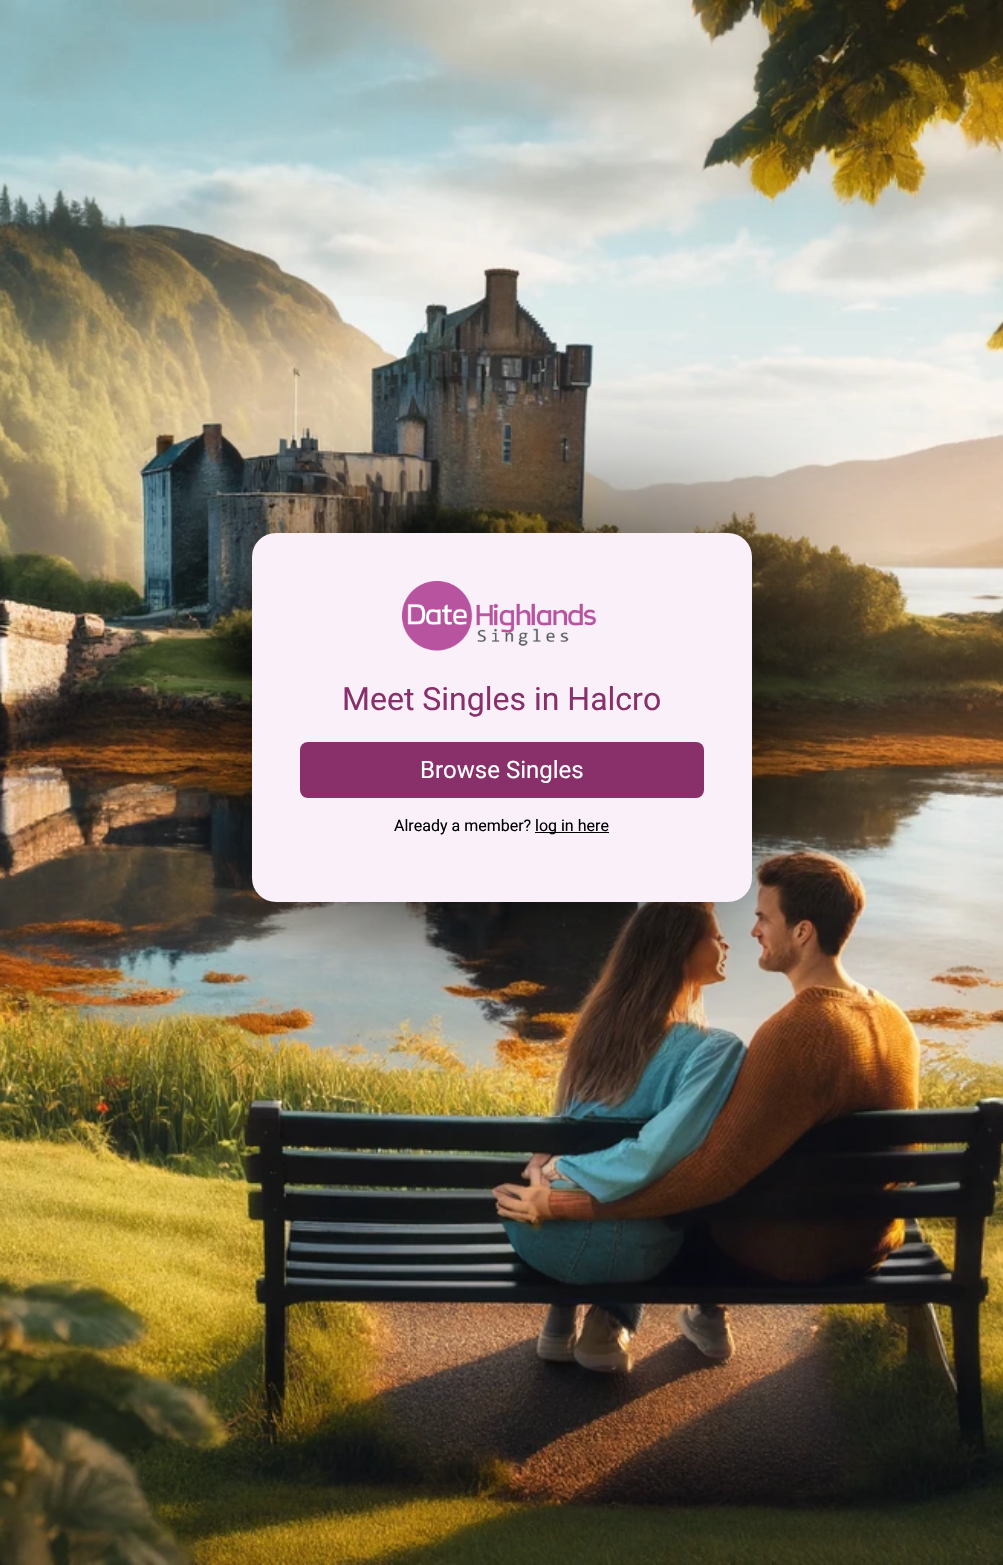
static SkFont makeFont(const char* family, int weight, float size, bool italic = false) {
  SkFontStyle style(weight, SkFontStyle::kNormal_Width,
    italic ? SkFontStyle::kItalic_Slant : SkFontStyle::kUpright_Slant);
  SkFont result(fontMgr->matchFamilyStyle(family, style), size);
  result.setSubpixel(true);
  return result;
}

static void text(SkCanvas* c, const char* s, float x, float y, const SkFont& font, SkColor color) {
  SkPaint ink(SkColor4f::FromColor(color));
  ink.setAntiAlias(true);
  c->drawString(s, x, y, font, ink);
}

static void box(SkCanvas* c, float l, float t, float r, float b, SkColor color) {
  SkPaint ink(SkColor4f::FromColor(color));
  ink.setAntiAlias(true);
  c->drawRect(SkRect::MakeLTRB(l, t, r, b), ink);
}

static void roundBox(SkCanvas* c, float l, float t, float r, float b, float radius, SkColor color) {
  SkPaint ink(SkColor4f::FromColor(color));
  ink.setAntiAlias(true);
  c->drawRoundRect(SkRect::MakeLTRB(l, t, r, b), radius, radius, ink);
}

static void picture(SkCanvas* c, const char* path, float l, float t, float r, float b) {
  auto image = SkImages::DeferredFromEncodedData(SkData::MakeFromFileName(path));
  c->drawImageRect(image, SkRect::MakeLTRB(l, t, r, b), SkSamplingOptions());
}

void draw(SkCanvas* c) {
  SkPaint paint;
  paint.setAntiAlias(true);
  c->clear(0xffffffff);
  picture(c, "img_01.png", 0, 0, 1003, 1565);
  paint.setColor(0xff000000);
  paint.setMaskFilter(SkMaskFilter::MakeBlur(kNormal_SkBlurStyle, 80));
  c->drawRoundRect(SkRect::MakeLTRB(252, 533, 752, 902), 24, 24, paint);
  paint.setMaskFilter(nullptr);
  roundBox(c, 252, 533, 752, 902, 24, 0xfff9f0fa);
  picture(c, "img_02.png", 402, 581, 597, 652);
  SkFont face1 = makeFont("Roboto", 400, 32);
  text(c, "Meet Singles in Halcro", 342, 710, face1, 0xff892f69);
  roundBox(c, 300, 742, 704, 798, 8, 0xff892f69);
  SkFont face2 = makeFont("Roboto", 400, 24);
  text(c, "Browse Singles", 420, 778, face2, 0xffffffff);
  SkFont face3 = makeFont("Roboto", 400, 16);
  text(c, "Already a member?", 394, 831, face3, 0xff000000);
  box(c, 535, 832, 609, 833, 0xff000000);
  text(c, "log in here", 535, 831, face3, 0xff000000);
}
